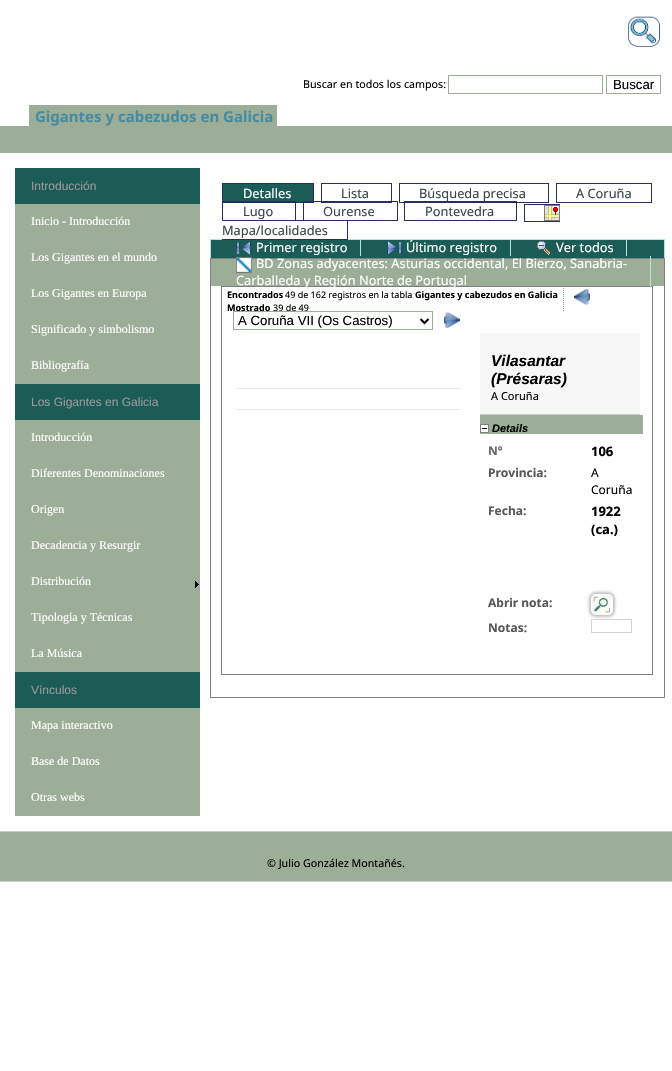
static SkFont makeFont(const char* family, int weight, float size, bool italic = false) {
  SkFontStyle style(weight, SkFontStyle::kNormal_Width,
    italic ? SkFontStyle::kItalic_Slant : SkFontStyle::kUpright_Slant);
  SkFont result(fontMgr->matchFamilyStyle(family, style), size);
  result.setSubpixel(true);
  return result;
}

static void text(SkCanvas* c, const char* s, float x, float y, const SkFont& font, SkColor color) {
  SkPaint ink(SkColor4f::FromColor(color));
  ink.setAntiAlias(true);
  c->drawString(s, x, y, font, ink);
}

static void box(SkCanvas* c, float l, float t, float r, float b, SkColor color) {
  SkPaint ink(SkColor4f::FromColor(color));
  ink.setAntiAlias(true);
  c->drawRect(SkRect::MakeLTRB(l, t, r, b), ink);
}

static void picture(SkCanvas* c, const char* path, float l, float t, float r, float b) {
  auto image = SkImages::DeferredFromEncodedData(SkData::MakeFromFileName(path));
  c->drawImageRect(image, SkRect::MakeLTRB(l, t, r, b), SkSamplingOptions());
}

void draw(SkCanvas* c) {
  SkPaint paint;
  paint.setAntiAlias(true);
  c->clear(0xffffffff);
  picture(c, "img_01.png", 628, 16, 661, 47);
  SkFont face1 = makeFont("Noto Sans", 400, 10.7f);
  text(c, "Buscar en todos los campos:", 303, 88, face1, 0xff000000);
  paint.setStyle(SkPaint::kStroke_Style);
  paint.setStrokeWidth(1);
  paint.setColor(0xff9cae97);
  c->drawRect(SkRect::MakeLTRB(448.5f, 75.5f, 602.5f, 93.5f), paint);
  c->drawRect(SkRect::MakeLTRB(606.5f, 75.5f, 660.5f, 93.5f), paint);
  SkFont face2 = makeFont("Liberation Sans", 400, 13.25f);
  text(c, "Buscar", 613, 89, face2, 0xff000000);
  box(c, 35, 105, 101, 126, 0xff9cae97);
  box(c, 0, 126, 672, 153, 0xff9cae97);
  box(c, 101, 105, 105, 127, 0xff9cae97);
  box(c, 105, 105, 114, 126, 0xff9cae97);
  box(c, 114, 105, 117, 127, 0xff9cae97);
  box(c, 117, 105, 196, 126, 0xff9cae97);
  box(c, 196, 105, 200, 127, 0xff9cae97);
  box(c, 200, 105, 219, 126, 0xff9cae97);
  box(c, 219, 105, 223, 127, 0xff9cae97);
  box(c, 223, 105, 273, 126, 0xff9cae97);
  SkFont face3 = makeFont("Noto Sans", 700, 15);
  text(c, "Gigantes y cabezudos en Galicia", 35, 122, face3, 0xff478ba1);
  box(c, 29, 105, 35, 127, 0xff9cae97);
  box(c, 273, 105, 277, 127, 0xff9cae97);
  box(c, 15, 168, 200, 204, 0xff1b5c57);
  SkFont face4 = makeFont("Liberation Sans", 400, 12);
  text(c, "Introducción", 31, 190, face4, 0xff999999);
  box(c, 15, 204, 200, 384, 0xff9cae97);
  SkFont face5 = makeFont("Liberation Serif", 400, 12);
  text(c, "Inicio - Introducción", 31, 225, face5, 0xffffffff);
  text(c, "Los Gigantes en el mundo", 31, 261, face5, 0xffffffff);
  text(c, "Los Gigantes en Europa", 31, 297, face5, 0xffffffff);
  text(c, "Significado y simbolismo", 31, 333, face5, 0xffffffff);
  text(c, "Bibliografía", 31, 369, face5, 0xffffffff);
  box(c, 15, 384, 200, 420, 0xff1b5c57);
  text(c, "Los Gigantes en Galicia", 31, 406, face4, 0xff999999);
  box(c, 15, 420, 200, 672, 0xff9cae97);
  text(c, "Introducción", 31, 441, face5, 0xffffffff);
  text(c, "Diferentes Denominaciones", 31, 477, face5, 0xffffffff);
  text(c, "Origen", 31, 513, face5, 0xffffffff);
  text(c, "Decadencia y Resurgir", 31, 549, face5, 0xffffffff);
  text(c, "Distribución", 31, 585, face5, 0xffffffff);
  picture(c, "img_02.png", 195, 581, 199, 588);
  text(c, "Tipología y Técnicas", 31, 621, face5, 0xffffffff);
  text(c, "La Música", 31, 657, face5, 0xffffffff);
  box(c, 15, 672, 200, 708, 0xff1b5c57);
  text(c, "Vínculos", 31, 694, face4, 0xff999999);
  box(c, 15, 708, 200, 816, 0xff9cae97);
  text(c, "Mapa interactivo", 31, 729, face5, 0xffffffff);
  text(c, "Base de Datos", 31, 765, face5, 0xffffffff);
  text(c, "Otras webs", 31, 801, face5, 0xffffffff);
  box(c, 210, 239, 665, 240, 0xffb6e5e1);
  box(c, 223, 184, 291, 201, 0xff1b5c57);
  SkFont face6 = makeFont("Noto Sans", 400, 12.8f);
  text(c, "Detalles", 243, 198, face6, 0xffffffff);
  box(c, 222, 183, 314, 184, 0xff2a2c64);
  box(c, 222, 202, 291, 203, 0xff153069);
  box(c, 222, 183, 223, 203, 0xff2a2c64);
  box(c, 291, 184, 313, 202, 0xff1b5c57);
  box(c, 313, 183, 314, 203, 0xff2a2c64);
  box(c, 291, 202, 314, 203, 0xff153069);
  text(c, "Lista", 341, 198, face6, 0xff384647);
  box(c, 321, 183, 392, 184, 0xff2a2c64);
  box(c, 321, 202, 369, 203, 0xff2a2c64);
  box(c, 321, 183, 322, 203, 0xff2a2c64);
  box(c, 391, 183, 392, 203, 0xff2a2c64);
  box(c, 369, 202, 392, 203, 0xff2a2c64);
  text(c, "Búsqueda precisa", 419, 198, face6, 0xff384647);
  box(c, 399, 183, 549, 184, 0xff2a2c64);
  box(c, 399, 202, 526, 203, 0xff2a2c64);
  box(c, 399, 183, 400, 203, 0xff2a2c64);
  box(c, 548, 183, 549, 203, 0xff2a2c64);
  box(c, 526, 202, 549, 203, 0xff2a2c64);
  text(c, "A Coruña", 576, 198, face6, 0xff384647);
  box(c, 556, 183, 652, 184, 0xff2a2c64);
  box(c, 556, 202, 632, 203, 0xff2a2c64);
  box(c, 556, 183, 557, 203, 0xff2a2c64);
  box(c, 651, 183, 652, 203, 0xff2a2c64);
  box(c, 632, 202, 652, 203, 0xff2a2c64);
  text(c, "Lugo", 243, 216, face6, 0xff384647);
  box(c, 222, 201, 296, 202, 0xff2a2c64);
  box(c, 222, 220, 261, 221, 0xff2a2c64);
  box(c, 222, 201, 223, 221, 0xff2a2c64);
  box(c, 295, 201, 296, 221, 0xff2a2c64);
  text(c, "Ourense", 323, 216, face6, 0xff384647);
  box(c, 303, 201, 398, 202, 0xff2a2c64);
  box(c, 303, 201, 304, 221, 0xff2a2c64);
  box(c, 261, 220, 375, 221, 0xff2a2c64);
  box(c, 397, 201, 398, 221, 0xff2a2c64);
  box(c, 375, 220, 398, 221, 0xff2a2c64);
  text(c, "Pontevedra", 425, 216, face6, 0xff384647);
  box(c, 404, 201, 517, 202, 0xff2a2c64);
  box(c, 404, 220, 494, 221, 0xff2a2c64);
  box(c, 404, 201, 405, 221, 0xff2a2c64);
  box(c, 516, 201, 517, 221, 0xff2a2c64);
  box(c, 494, 220, 517, 221, 0xff2a2c64);
  picture(c, "img_03.png", 544, 205, 560, 221);
  text(c, "Mapa/localidades", 222, 235, face6, 0xff384647);
  box(c, 524, 204, 560, 205, 0xff2a2c64);
  box(c, 524, 221, 560, 222, 0xff2a2c64);
  box(c, 524, 204, 525, 222, 0xff2a2c64);
  box(c, 222, 239, 328, 240, 0xff2a2c64);
  box(c, 347, 220, 348, 240, 0xff2a2c64);
  box(c, 328, 239, 348, 240, 0xff2a2c64);
  box(c, 211, 240, 664, 258, 0xff1b5c57);
  box(c, 664, 240, 665, 258, 0xffb6e5e1);
  box(c, 210, 240, 211, 258, 0xffb6e5e1);
  box(c, 360, 240, 361, 256, 0xffb6e5e1);
  picture(c, "img_04.png", 236, 241, 251, 255);
  text(c, "Primer registro", 256, 252, face6, 0xffffffff);
  box(c, 510, 240, 511, 256, 0xffb6e5e1);
  picture(c, "img_05.png", 387, 241, 402, 255);
  text(c, "Último registro", 406, 252, face6, 0xffffffff);
  box(c, 626, 240, 627, 256, 0xffb6e5e1);
  picture(c, "img_06.png", 537, 241, 550, 255);
  text(c, "Ver todos", 556, 252, face6, 0xffffffff);
  paint.setColor(0xff808080);
  c->drawRect(SkRect::MakeLTRB(210.5f, 258.5f, 664.5f, 697.5f), paint);
  box(c, 211, 259, 664, 286, 0xff9cae97);
  c->drawRect(SkRect::MakeLTRB(221.5f, 286.5f, 652.5f, 674.5f), paint);
  box(c, 650, 256, 651, 288, 0xffb6e5e1);
  picture(c, "img_07.png", 236, 257, 252, 273);
  text(c, "BD Zonas adyacentes: Asturias occidental, El Bierzo, Sanabria-", 256, 268, face6, 0xffffffff);
  text(c, "Carballeda y Región Norte de Portugal", 236, 285, face6, 0xffffffff);
  paint.setColor(0xff9cae97);
  paint.setPathEffect(SkDashPathEffect::Make({{1, 1}}, 0));
  c->drawPath(SkPathBuilder().moveTo(563.5f, 288).lineTo(563.5f, 311).detach(), paint);
  paint.setPathEffect(nullptr);
  SkFont face7 = makeFont("Noto Sans", 700, 9);
  text(c, "Encontrados", 227, 298, face7, 0xff000000);
  SkFont face8 = makeFont("Noto Sans", 400, 9);
  text(c, "49 de 162 registros en la tabla", 285, 298, face8, 0xff000000);
  text(c, "Gigantes y cabezudos en Galicia", 415, 298, face7, 0xff000000);
  text(c, "Mostrado", 227, 311, face7, 0xff000000);
  text(c, "39 de 49", 273, 311, face8, 0xff000000);
  picture(c, "img_08.png", 574, 289, 590, 305);
  c->drawRect(SkRect::MakeLTRB(233.5f, 311.5f, 432.5f, 329.5f), paint);
  paint.setStrokeWidth(2);
  paint.setColor(0xff000000);
  c->drawPath(SkPathBuilder().moveTo(420.5f, 319).lineTo(424.5f, 323).lineTo(428.5f, 319).detach(), paint);
  text(c, "A Coruña VII (Os Castros)", 238, 325, face2, 0xff000000);
  picture(c, "img_09.png", 444, 312, 460, 328);
  box(c, 236, 388, 461, 389, 0xffe9e9e9);
  box(c, 236, 409, 461, 410, 0xffe9e9e9);
  box(c, 480, 333, 640, 414, 0xfff7f7f7);
  box(c, 480, 414, 640, 415, 0xffcccccc);
  SkFont face9 = makeFont("Liberation Sans", 700, 15.5f, true);
  text(c, "Vilasantar", 491, 366, face9, 0xff000000);
  text(c, "(Présaras)", 491, 384, face9, 0xff000000);
  SkFont face10 = makeFont("Noto Sans", 400, 11);
  text(c, "A Coruña", 491, 400, face10, 0xff000000);
  box(c, 480, 415, 643, 434, 0xff9cae97);
  picture(c, "img_10.png", 480, 424, 489, 433);
  SkFont face11 = makeFont("Liberation Sans", 700, 11, true);
  text(c, "Details", 492, 432, face11, 0xff000000);
  SkFont face12 = makeFont("Noto Sans", 700, 12);
  text(c, "Nº", 488, 455, face12, 0xff666666);
  SkFont face13 = makeFont("Noto Sans", 700, 13);
  text(c, "106", 591, 456, face13, 0xff000000);
  text(c, "Provincia:", 488, 477, face12, 0xff585858);
  SkFont face14 = makeFont("Noto Sans", 400, 12);
  text(c, "A", 591, 477, face14, 0xff000000);
  text(c, "Coruña", 591, 494, face14, 0xff000000);
  text(c, "Fecha:", 488, 515, face12, 0xff585858);
  text(c, "1922", 591, 516, face13, 0xff000000);
  text(c, "(ca.)", 591, 534, face13, 0xff000000);
  text(c, "Abrir nota:", 488, 607, face12, 0xff585858);
  paint.setStyle(SkPaint::kFill_Style);
  paint.setColor(0xffc0c0c0);
  paint.setMaskFilter(SkMaskFilter::MakeBlur(kNormal_SkBlurStyle, 1.5f));
  c->drawRoundRect(SkRect::MakeLTRB(589, 592, 615, 617), 7, 7, paint);
  paint.setMaskFilter(nullptr);
  paint.setStyle(SkPaint::kStroke_Style);
  paint.setColor(0xffffffff);
  c->drawRoundRect(SkRect::MakeLTRB(592, 595, 612, 614), 4, 4, paint);
  picture(c, "img_11.png", 593, 596, 611, 613);
  text(c, "Notas:", 488, 632, face12, 0xff585858);
  paint.setStrokeWidth(1);
  paint.setColor(0xffd3d3d3);
  c->drawRect(SkRect::MakeLTRB(591.5f, 619.5f, 631.5f, 632.5f), paint);
  box(c, 0, 832, 672, 881, 0xff9cae97);
  box(c, 0, 831, 672, 832, 0xffcccccc);
  box(c, 0, 881, 672, 882, 0xffcccccc);
  text(c, "© Julio González Montañés.", 267, 867, face1, 0xff000000);
}
